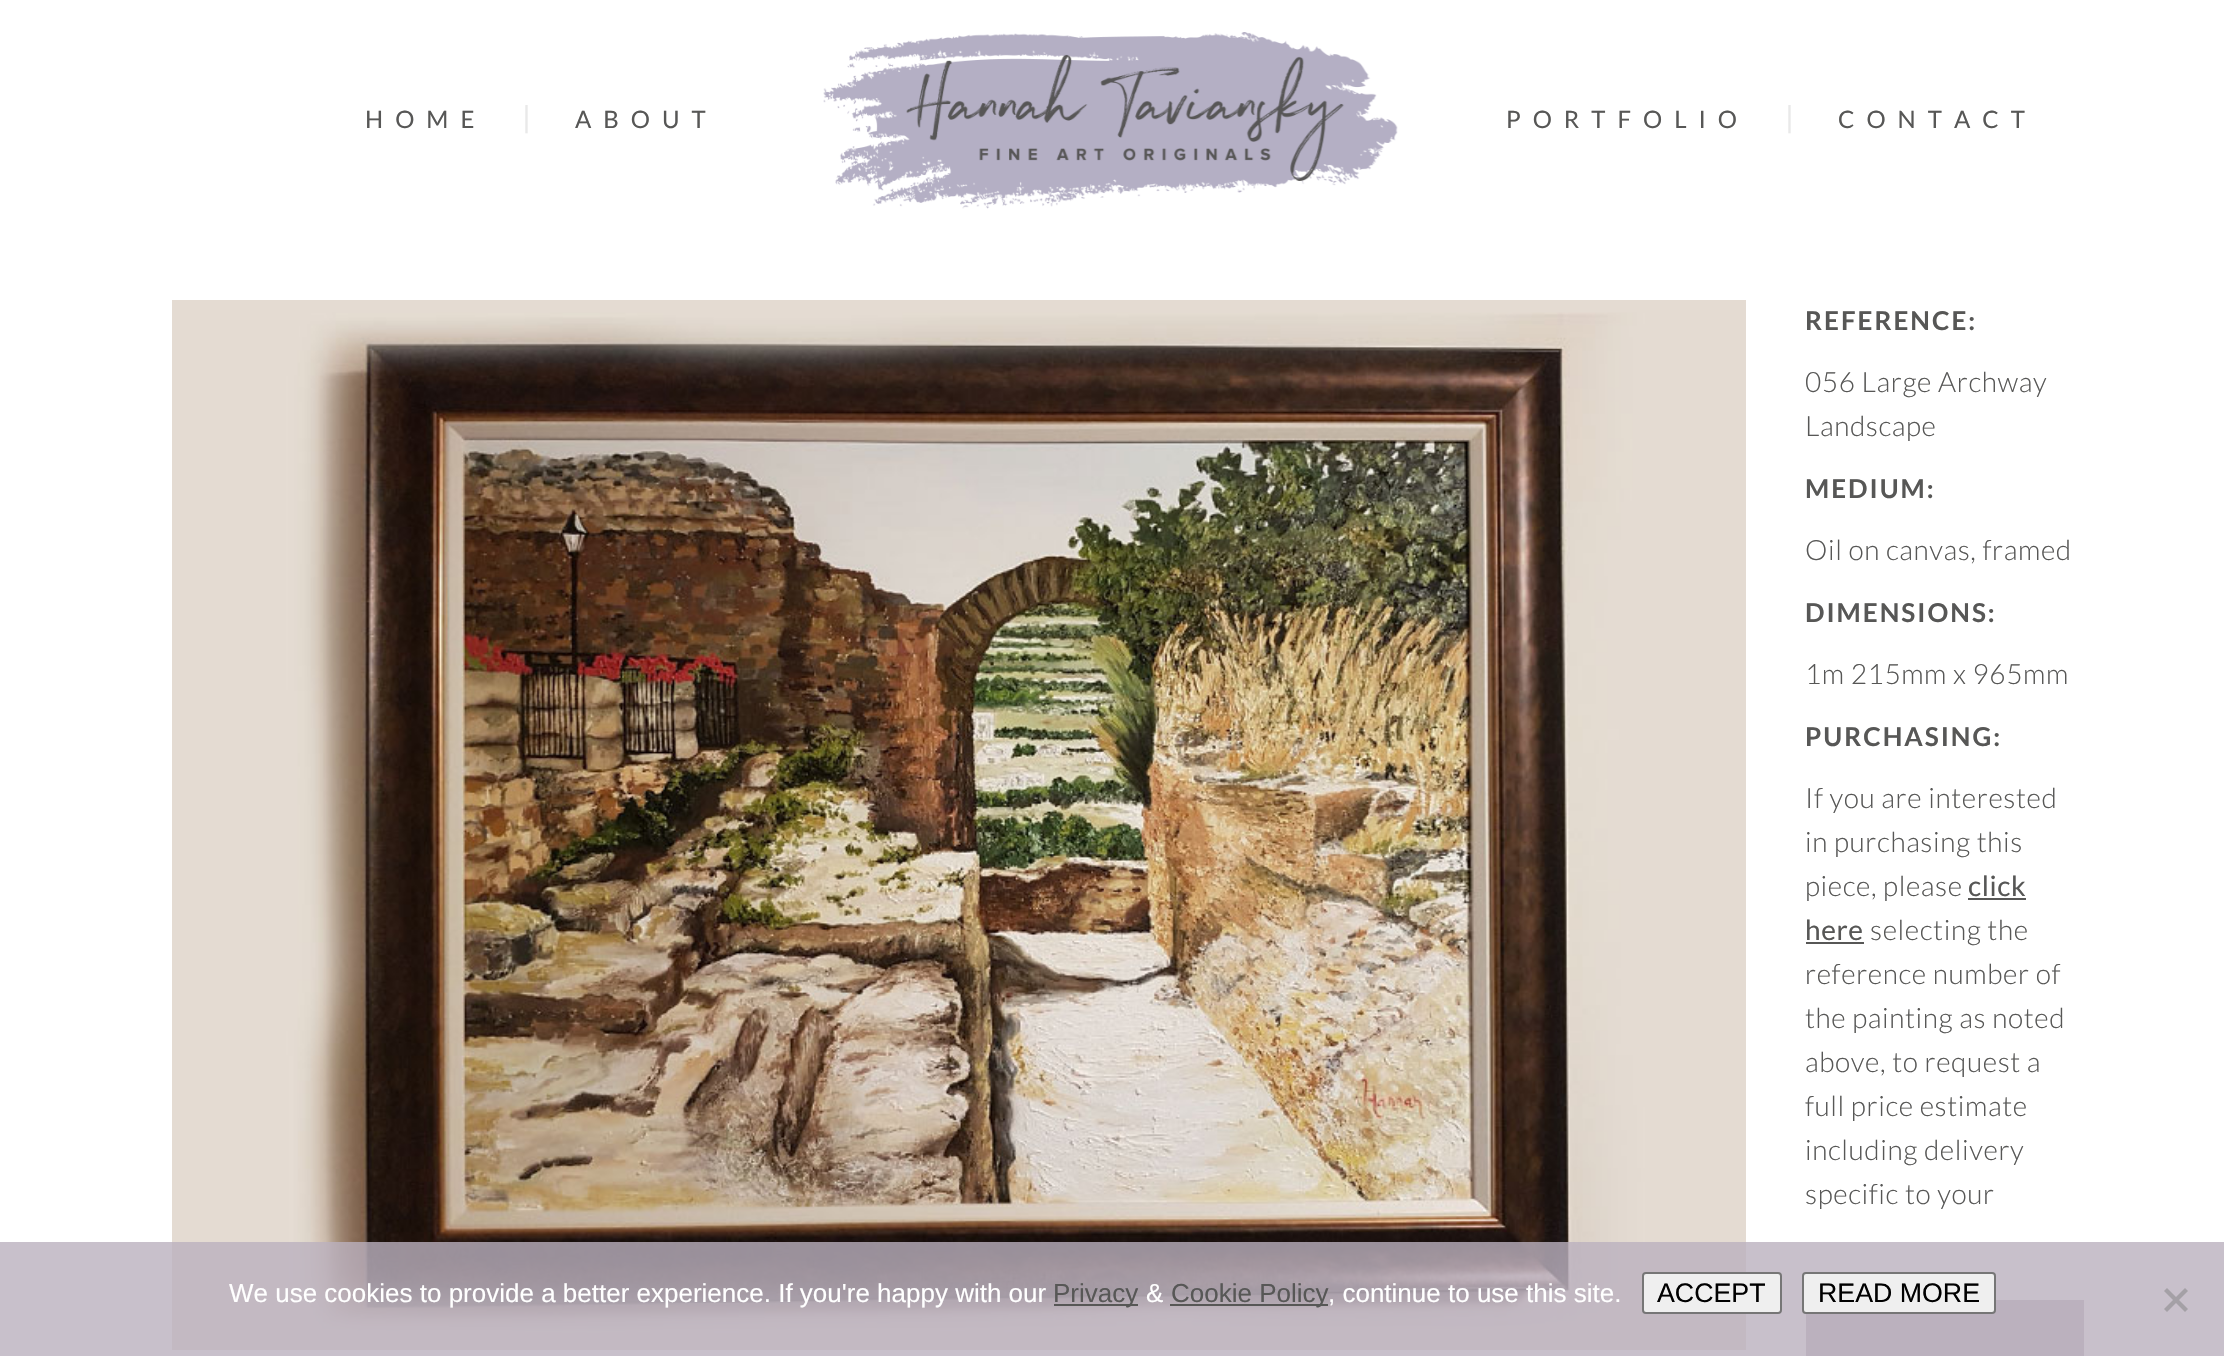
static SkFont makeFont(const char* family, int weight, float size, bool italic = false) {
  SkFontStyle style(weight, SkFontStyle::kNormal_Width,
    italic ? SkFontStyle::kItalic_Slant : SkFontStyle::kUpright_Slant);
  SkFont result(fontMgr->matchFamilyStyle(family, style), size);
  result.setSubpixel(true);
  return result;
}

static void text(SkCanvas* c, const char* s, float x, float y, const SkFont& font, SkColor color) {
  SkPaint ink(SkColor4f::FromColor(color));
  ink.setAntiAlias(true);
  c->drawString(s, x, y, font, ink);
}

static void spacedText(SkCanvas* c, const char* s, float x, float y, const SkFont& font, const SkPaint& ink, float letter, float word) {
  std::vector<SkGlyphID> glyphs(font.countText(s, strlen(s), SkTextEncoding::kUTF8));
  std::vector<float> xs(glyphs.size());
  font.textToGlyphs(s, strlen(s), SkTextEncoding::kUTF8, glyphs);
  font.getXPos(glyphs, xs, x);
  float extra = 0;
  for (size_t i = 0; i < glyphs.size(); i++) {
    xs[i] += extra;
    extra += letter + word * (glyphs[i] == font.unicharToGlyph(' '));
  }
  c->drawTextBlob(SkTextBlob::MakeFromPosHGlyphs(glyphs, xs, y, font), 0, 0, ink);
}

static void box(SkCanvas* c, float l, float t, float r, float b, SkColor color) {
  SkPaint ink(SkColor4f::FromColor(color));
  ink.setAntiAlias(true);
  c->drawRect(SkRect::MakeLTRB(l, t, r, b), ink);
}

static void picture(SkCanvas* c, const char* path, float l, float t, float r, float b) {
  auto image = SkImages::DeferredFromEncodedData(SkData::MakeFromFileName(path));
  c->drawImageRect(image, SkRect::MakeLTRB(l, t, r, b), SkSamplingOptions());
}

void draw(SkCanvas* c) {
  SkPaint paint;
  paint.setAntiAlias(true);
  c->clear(0xffffffff);
  SkFont face1 = makeFont("Lato", 400, 24);
  paint.setColor(0xff575756);
  spacedText(c, "HOME", 365, 128, face1, paint, 12, 0);
  SkFont face2 = makeFont("Lato", 400, 30);
  text(c, "|", 522, 128, face2, 0xffe9e9e9);
  spacedText(c, "ABOUT", 575, 128, face1, paint, 12, 0);
  picture(c, "img_01.png", 823, 32, 1398, 209);
  spacedText(c, "PORTFOLIO", 1506, 128, face1, paint, 12, 0);
  text(c, "|", 1785, 128, face2, 0xffe9e9e9);
  spacedText(c, "CONTACT", 1838, 128, face1, paint, 12, 0);
  picture(c, "img_02.png", 172, 300, 1746, 1350);
  SkFont face3 = makeFont("Lato", 700, 26);
  spacedText(c, "REFERENCE:", 1805, 330, face3, paint, 2, 0);
  SkFont face4 = makeFont("Lato", 300, 28);
  spacedText(c, "056 Large Archway", 1805, 392, face4, paint, 0.6f, 0);
  spacedText(c, "Landscape", 1805, 436, face4, paint, 0.6f, 0);
  spacedText(c, "MEDIUM:", 1805, 498, face3, paint, 2, 0);
  spacedText(c, "Oil on canvas, framed", 1805, 560, face4, paint, 0.6f, 0);
  spacedText(c, "DIMENSIONS:", 1805, 622, face3, paint, 2, 0);
  spacedText(c, "1m 215mm x 965mm", 1805, 684, face4, paint, 0.6f, 0);
  spacedText(c, "PURCHASING:", 1805, 746, face3, paint, 2, 0);
  spacedText(c, "If you are interested", 1805, 808, face4, paint, 0.6f, 0);
  spacedText(c, "in purchasing this", 1805, 852, face4, paint, 0.6f, 0);
  spacedText(c, "piece, please", 1805, 896, face4, paint, 0.6f, 0);
  SkFont face5 = makeFont("Lato", 400, 28);
  spacedText(c, "click", 1968, 896, face5, paint, 0.6f, 0);
  box(c, 1968, 898, 2026, 900, 0xff575756);
  spacedText(c, "here", 1805, 940, face5, paint, 0.6f, 0);
  box(c, 1806, 942, 1864, 944, 0xff575756);
  spacedText(c, "selecting the", 1870, 940, face4, paint, 0.6f, 0);
  spacedText(c, "reference number of", 1805, 984, face4, paint, 0.6f, 0);
  spacedText(c, "the painting as noted", 1805, 1028, face4, paint, 0.6f, 0);
  spacedText(c, "above, to request a", 1805, 1072, face4, paint, 0.6f, 0);
  spacedText(c, "full price estimate", 1805, 1116, face4, paint, 0.6f, 0);
  spacedText(c, "including delivery", 1805, 1160, face4, paint, 0.6f, 0);
  spacedText(c, "specific to your", 1805, 1204, face4, paint, 0.6f, 0);
  box(c, 1806, 1300, 2084, 1356, 0xffbab0be);
  box(c, 0, 1242, 2224, 1356, 0xccbab0be);
  SkFont face6 = makeFont("Liberation Sans", 400, 26);
  text(c, "We use cookies to provide a better experience. If you're happy with our", 229, 1302, face6, 0xffffffff);
  box(c, 1054, 1304, 1138, 1306, 0xff575756);
  text(c, "Privacy", 1053, 1302, face6, 0xff575756);
  text(c, "&", 1146, 1302, face6, 0xffffffff);
  box(c, 1170, 1304, 1328, 1306, 0xff575756);
  text(c, "Cookie Policy", 1171, 1302, face6, 0xff575756);
  text(c, ", continue to use this site.", 1328, 1302, face6, 0xffffffff);
  paint.setColor(0xffefefef);
  c->drawRoundRect(SkRect::MakeLTRB(1643, 1273, 1781, 1313), 3, 3, paint);
  paint.setStyle(SkPaint::kStroke_Style);
  paint.setStrokeWidth(2);
  paint.setColor(0xff767676);
  c->drawRoundRect(SkRect::MakeLTRB(1643, 1273, 1781, 1313), 3, 3, paint);
  SkFont face7 = makeFont("Liberation Sans", 400, 26.75f);
  text(c, "ACCEPT", 1657, 1302, face7, 0xff000000);
  paint.setStyle(SkPaint::kFill_Style);
  paint.setColor(0xffefefef);
  c->drawRoundRect(SkRect::MakeLTRB(1803, 1273, 1995, 1313), 3, 3, paint);
  paint.setStyle(SkPaint::kStroke_Style);
  paint.setColor(0xff767676);
  c->drawRoundRect(SkRect::MakeLTRB(1803, 1273, 1995, 1313), 3, 3, paint);
  text(c, "READ MORE", 1818, 1302, face7, 0xff000000);
  paint.setStyle(SkPaint::kFill_Style);
  paint.setColor(0xffa4a0a6);
  c->drawPath(SkPathBuilder().moveTo(2185, 1288).lineTo(2188, 1291).lineTo(2167, 1312).lineTo(2164, 1309).close().detach(), paint);
  c->drawPath(SkPathBuilder().moveTo(2164, 1291).lineTo(2167, 1288).lineTo(2188, 1309).lineTo(2185, 1312).close().detach(), paint);
}
